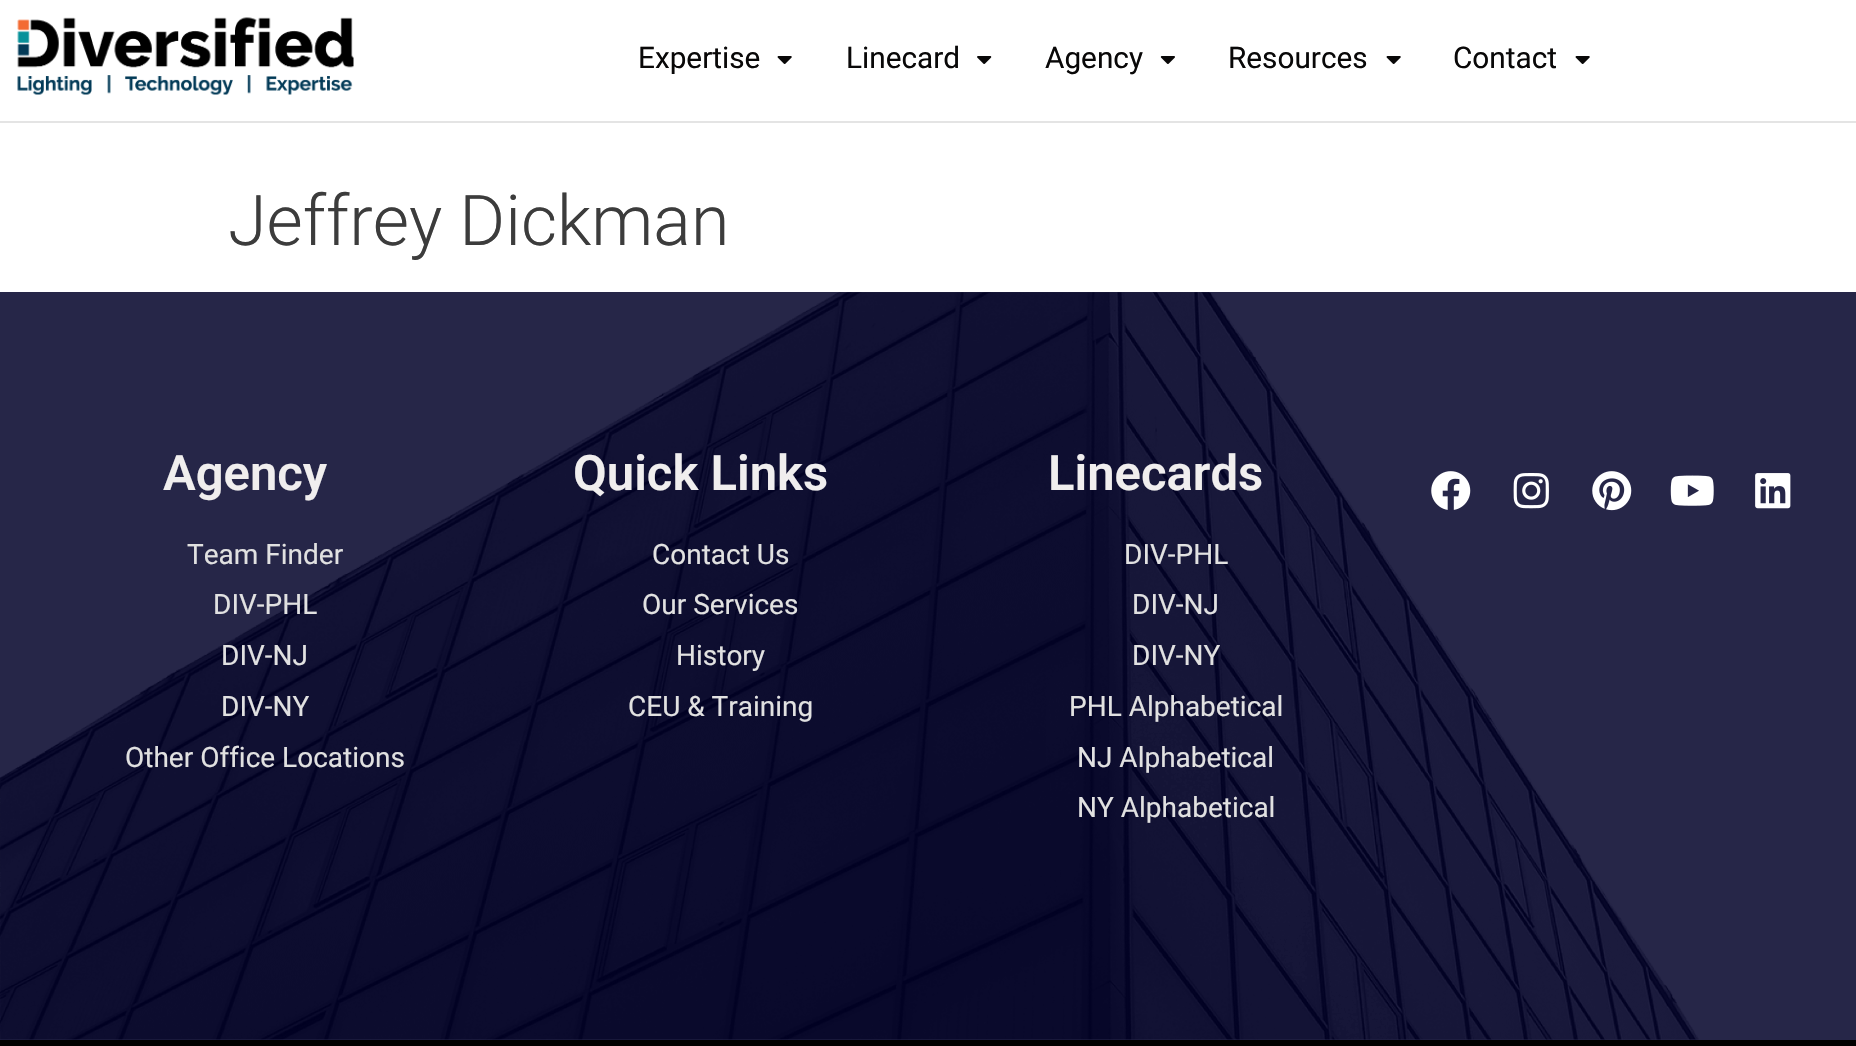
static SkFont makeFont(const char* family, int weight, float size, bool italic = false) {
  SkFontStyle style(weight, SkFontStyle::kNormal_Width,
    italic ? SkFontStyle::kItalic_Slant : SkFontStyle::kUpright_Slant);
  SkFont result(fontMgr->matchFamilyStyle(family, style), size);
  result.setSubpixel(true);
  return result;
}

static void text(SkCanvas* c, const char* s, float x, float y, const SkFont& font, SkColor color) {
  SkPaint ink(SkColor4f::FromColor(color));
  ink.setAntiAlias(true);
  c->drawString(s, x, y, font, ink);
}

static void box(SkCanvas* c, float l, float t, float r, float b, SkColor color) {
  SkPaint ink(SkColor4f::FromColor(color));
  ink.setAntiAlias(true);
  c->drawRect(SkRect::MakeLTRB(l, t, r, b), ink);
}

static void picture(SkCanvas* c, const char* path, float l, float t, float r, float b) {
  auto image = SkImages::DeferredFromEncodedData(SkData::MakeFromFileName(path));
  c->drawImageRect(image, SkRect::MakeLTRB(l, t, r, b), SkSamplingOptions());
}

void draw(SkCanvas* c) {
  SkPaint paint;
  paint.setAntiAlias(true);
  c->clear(0xffffffff);
  box(c, 0, 292, 1856, 1040, 0xff262648);
  picture(c, "img_01.png", 17, 17, 354, 95);
  SkFont face1 = makeFont("Roboto", 400, 29.75f);
  text(c, "Expertise", 638, 68, face1, 0xff090808);
  picture(c, "img_02.png", 777, 56, 792, 64);
  text(c, "Linecard", 846, 68, face1, 0xff090808);
  picture(c, "img_03.png", 977, 56, 992, 64);
  text(c, "Agency", 1045, 68, face1, 0xff090808);
  picture(c, "img_04.png", 1160, 56, 1175, 64);
  text(c, "Resources", 1228, 68, face1, 0xff090808);
  picture(c, "img_02.png", 1386, 56, 1401, 64);
  text(c, "Contact", 1453, 68, face1, 0xff090808);
  picture(c, "img_02.png", 1575, 56, 1590, 64);
  box(c, 0, 121, 1856, 123, 0xffe4e4e4);
  SkFont face2 = makeFont("Roboto", 300, 70);
  text(c, "Jeffrey Dickman", 228, 245, face2, 0xff3c3c3c);
  picture(c, "img_05.png", 0, 292, 1700, 1040);
  SkFont face3 = makeFont("Roboto", 600, 49);
  text(c, "Agency", 163, 490, face3, 0xfff0eeee);
  SkFont face4 = makeFont("Roboto", 400, 28);
  text(c, "Team Finder", 187, 564, face4, 0xffe1e1e1);
  text(c, "DIV-PHL", 213, 614, face4, 0xffe1e1e1);
  text(c, "DIV-NJ", 221, 665, face4, 0xffe1e1e1);
  text(c, "DIV-NY", 221, 716, face4, 0xffe1e1e1);
  text(c, "Other Office Locations", 125, 767, face4, 0xffe1e1e1);
  text(c, "Quick Links", 573, 490, face3, 0xfff0eeee);
  text(c, "Contact Us", 652, 564, face4, 0xffe1e1e1);
  text(c, "Our Services", 642, 614, face4, 0xffe1e1e1);
  text(c, "History", 676, 665, face4, 0xffe1e1e1);
  text(c, "CEU & Training", 628, 716, face4, 0xffe1e1e1);
  text(c, "Linecards", 1048, 490, face3, 0xfff0eeee);
  text(c, "DIV-PHL", 1124, 564, face4, 0xffe1e1e1);
  text(c, "DIV-NJ", 1132, 614, face4, 0xffe1e1e1);
  text(c, "DIV-NY", 1132, 665, face4, 0xffe1e1e1);
  text(c, "PHL Alphabetical", 1069, 716, face4, 0xffe1e1e1);
  text(c, "NJ Alphabetical", 1077, 767, face4, 0xffe1e1e1);
  text(c, "NY Alphabetical", 1077, 817, face4, 0xffe1e1e1);
  picture(c, "img_06.png", 1431, 471, 1471, 510);
  picture(c, "img_07.png", 1513, 473, 1549, 509);
  picture(c, "img_08.png", 1592, 471, 1632, 511);
  picture(c, "img_09.png", 1670, 475, 1714, 506);
  picture(c, "img_10.png", 1755, 473, 1791, 509);
  box(c, 0, 1040, 1856, 1046, 0xff000000);
}
